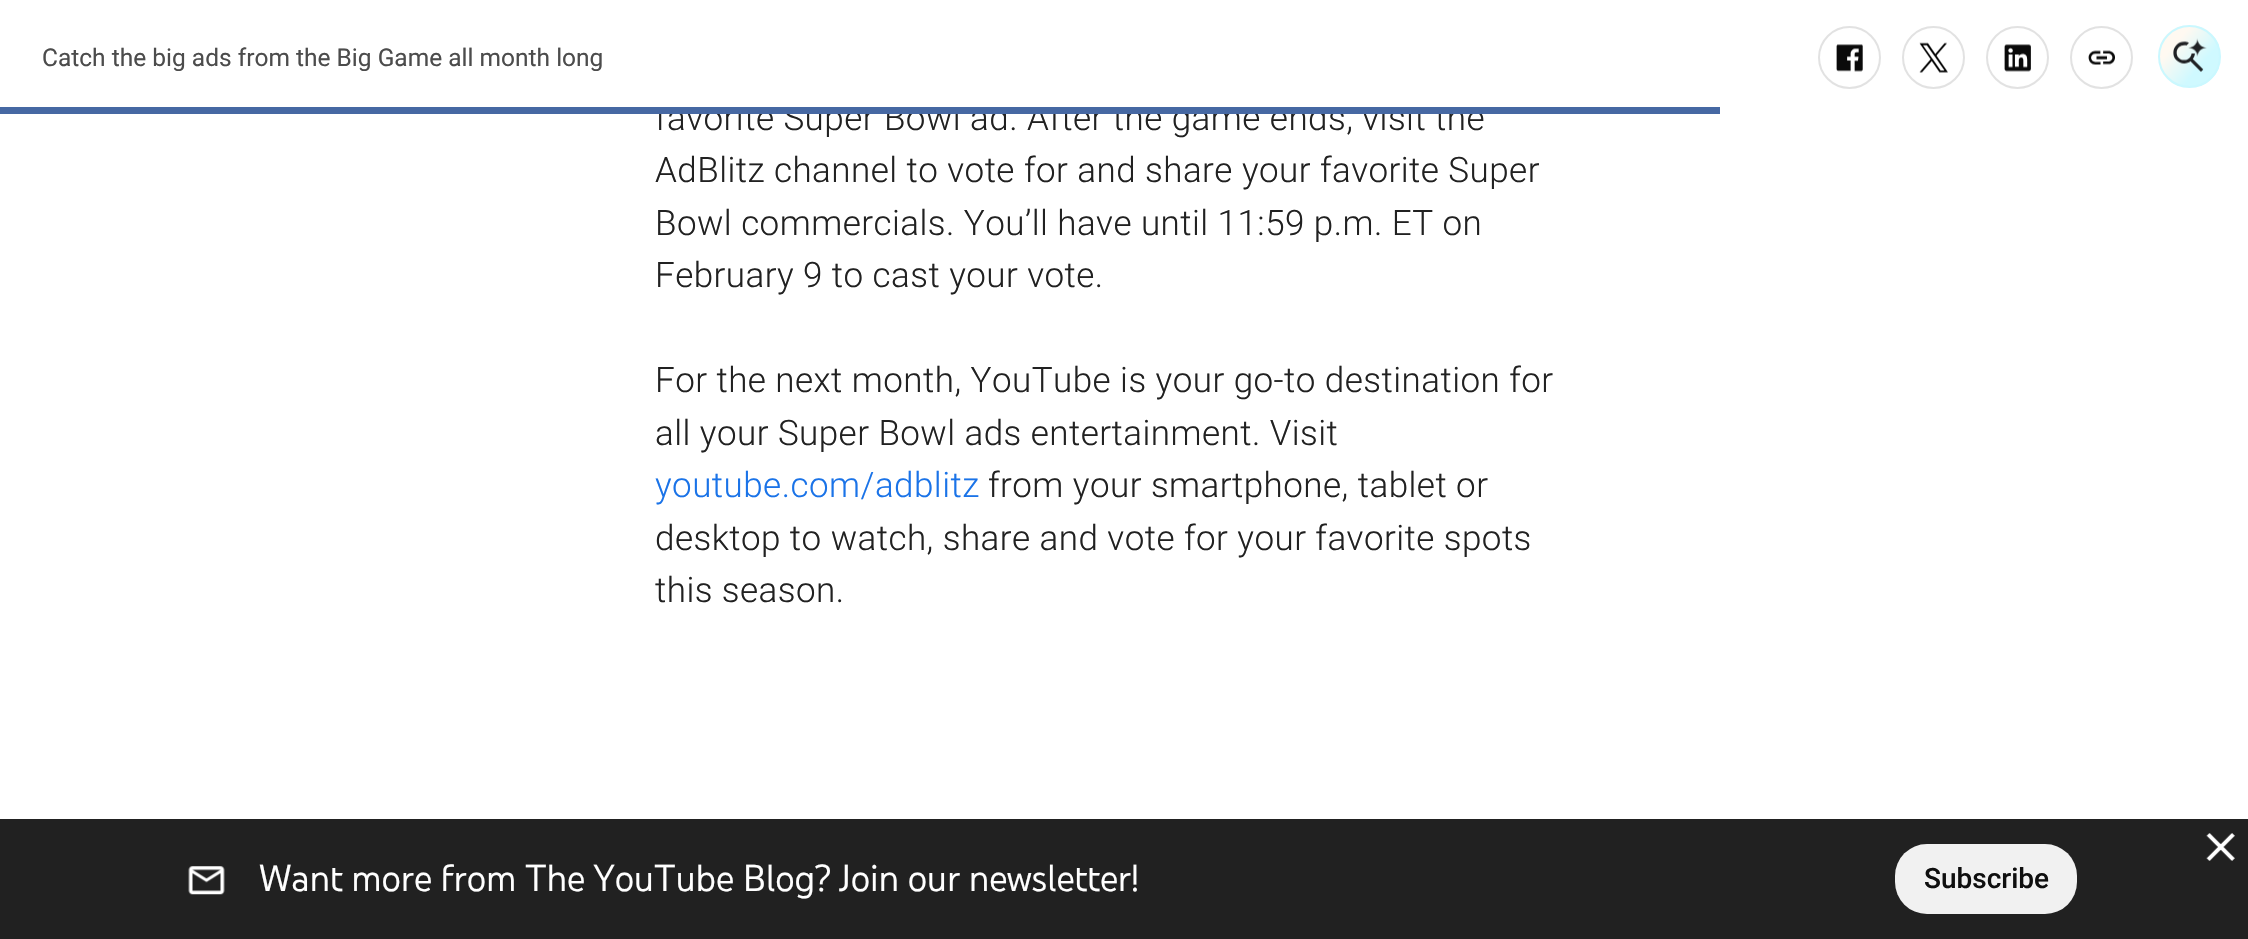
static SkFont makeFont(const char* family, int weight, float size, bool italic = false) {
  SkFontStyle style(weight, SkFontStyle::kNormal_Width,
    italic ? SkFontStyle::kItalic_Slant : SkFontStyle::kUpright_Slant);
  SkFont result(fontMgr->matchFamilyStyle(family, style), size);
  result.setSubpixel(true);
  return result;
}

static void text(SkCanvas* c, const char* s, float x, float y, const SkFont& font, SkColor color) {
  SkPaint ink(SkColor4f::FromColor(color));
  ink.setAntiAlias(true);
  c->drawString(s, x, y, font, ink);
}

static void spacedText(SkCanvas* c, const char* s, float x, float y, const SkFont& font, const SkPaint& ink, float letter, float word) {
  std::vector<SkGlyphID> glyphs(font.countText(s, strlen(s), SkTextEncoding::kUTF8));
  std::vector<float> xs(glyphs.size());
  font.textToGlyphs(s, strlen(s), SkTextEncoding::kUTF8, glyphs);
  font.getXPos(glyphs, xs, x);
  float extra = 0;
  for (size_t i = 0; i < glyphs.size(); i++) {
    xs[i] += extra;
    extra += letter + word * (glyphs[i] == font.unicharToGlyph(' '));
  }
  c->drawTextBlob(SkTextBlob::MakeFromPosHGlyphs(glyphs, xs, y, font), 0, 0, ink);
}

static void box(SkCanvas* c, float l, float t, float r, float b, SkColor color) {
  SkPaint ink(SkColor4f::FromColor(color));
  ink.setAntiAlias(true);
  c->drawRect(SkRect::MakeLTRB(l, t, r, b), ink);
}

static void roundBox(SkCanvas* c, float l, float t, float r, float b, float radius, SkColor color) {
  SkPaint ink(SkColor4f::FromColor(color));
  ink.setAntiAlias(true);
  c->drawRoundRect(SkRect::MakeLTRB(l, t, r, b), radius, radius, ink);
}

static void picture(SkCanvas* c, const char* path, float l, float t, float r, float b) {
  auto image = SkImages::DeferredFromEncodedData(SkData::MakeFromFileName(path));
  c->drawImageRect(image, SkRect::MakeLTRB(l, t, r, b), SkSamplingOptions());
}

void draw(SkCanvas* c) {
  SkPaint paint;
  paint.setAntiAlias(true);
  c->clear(0xffffffff);
  SkFont face1 = makeFont("Roboto", 300, 35);
  paint.setColor(0xff212121);
  spacedText(c, "favorite Super Bowl ad. After the game ends, visit the", 655, 130, face1, paint, 0.45f, 0);
  box(c, 656, 103, 1481, 114, 0xffffffff);
  SkFont face2 = makeFont("Roboto", 400, 24.5f);
  text(c, "Catch the big ads from the Big Game all month long", 42, 66, face2, 0xff4c4c4c);
  paint.setStyle(SkPaint::kStroke_Style);
  paint.setStrokeWidth(2);
  paint.setColor(0xffe2e2e2);
  c->drawCircle(1849.5f, 57.5f, 30.5f, paint);
  picture(c, "img_01.png", 1836, 44, 1863, 72);
  c->drawCircle(1933.5f, 57.5f, 30.5f, paint);
  picture(c, "img_02.png", 1919, 42, 1948, 73);
  c->drawCircle(2017.5f, 57.5f, 30.5f, paint);
  picture(c, "img_03.png", 2004, 44, 2031, 72);
  c->drawCircle(2101.5f, 57.5f, 30.5f, paint);
  picture(c, "img_04.png", 2088, 50, 2115, 65);
  c->save();
  c->clipPath(SkPathBuilder().moveTo(2189.5f, 25).cubicTo(2207, 25, 2221, 39, 2221, 56.5f).cubicTo(2221, 74, 2207, 88, 2189.5f, 88).cubicTo(2172, 88, 2158, 74, 2158, 56.5f).cubicTo(2158, 39, 2172, 25, 2189.5f, 25).close().detach(), true);
  paint.setStyle(SkPaint::kFill_Style);
  {
    const SkColor colors[] = {0xfffff9f1, 0xffcff9ff};
    const float stops[] = {0.28f, 0.68f};
    const SkPoint ends[] = {{2157, 29}, {2221, 83}};
    paint.setShader(SkGradientShader::MakeLinear(ends, colors, stops, 2, SkTileMode::kClamp));
    paint.setAlpha(255);
  }
  c->drawRect(SkRect::MakeLTRB(2160, 26, 2219, 86), paint);
  c->restore();
  paint.setStyle(SkPaint::kStroke_Style);
  paint.setShader(nullptr);
  paint.setColor(0xffcaf8ff);
  c->drawCircle(2189.5f, 56.5f, 30.5f, paint);
  picture(c, "img_06.png", 2173, 41, 2204, 72);
  picture(c, "img_05.png", 2188, 38, 2207, 57);
  box(c, 0, 107, 1720, 114, 0xff4668a3);
  paint.setStyle(SkPaint::kFill_Style);
  paint.setColor(0xff212121);
  spacedText(c, "AdBlitz channel to vote for and share your favorite Super", 655, 182, face1, paint, 0.45f, 0);
  spacedText(c, "Bowl commercials. You’ll have until 11:59 p.m. ET on", 655, 235, face1, paint, 0.45f, 0);
  spacedText(c, "February 9 to cast your vote.", 655, 287, face1, paint, 0.45f, 0);
  spacedText(c, "For the next month, YouTube is your go-to destination for", 655, 392, face1, paint, 0.45f, 0);
  spacedText(c, "all your Super Bowl ads entertainment. Visit", 655, 445, face1, paint, 0.45f, 0);
  paint.setColor(0xff1a73e8);
  spacedText(c, "youtube.com/adblitz", 655, 497, face1, paint, 0.45f, 0);
  paint.setColor(0xff212121);
  spacedText(c, "from your smartphone, tablet or", 988, 497, face1, paint, 0.45f, 0);
  spacedText(c, "desktop to watch, share and vote for your favorite spots", 655, 550, face1, paint, 0.45f, 0);
  spacedText(c, "this season.", 655, 602, face1, paint, 0.45f, 0);
  box(c, 0, 819, 2248, 939, 0xff212121);
  picture(c, "img_07.png", 2206, 833, 2235, 861);
  picture(c, "img_08.png", 188, 866, 225, 895);
  SkFont face3 = makeFont("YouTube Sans", 400, 38.5f);
  text(c, "Want more from The YouTube Blog? Join our newsletter!", 259, 891, face3, 0xffffffff);
  roundBox(c, 1895, 844, 2077, 914, 32, 0xfff1f1f1);
  SkFont face4 = makeFont("Roboto", 500, 28);
  text(c, "Subscribe", 1924, 888, face4, 0xff0f0f0f);
}
